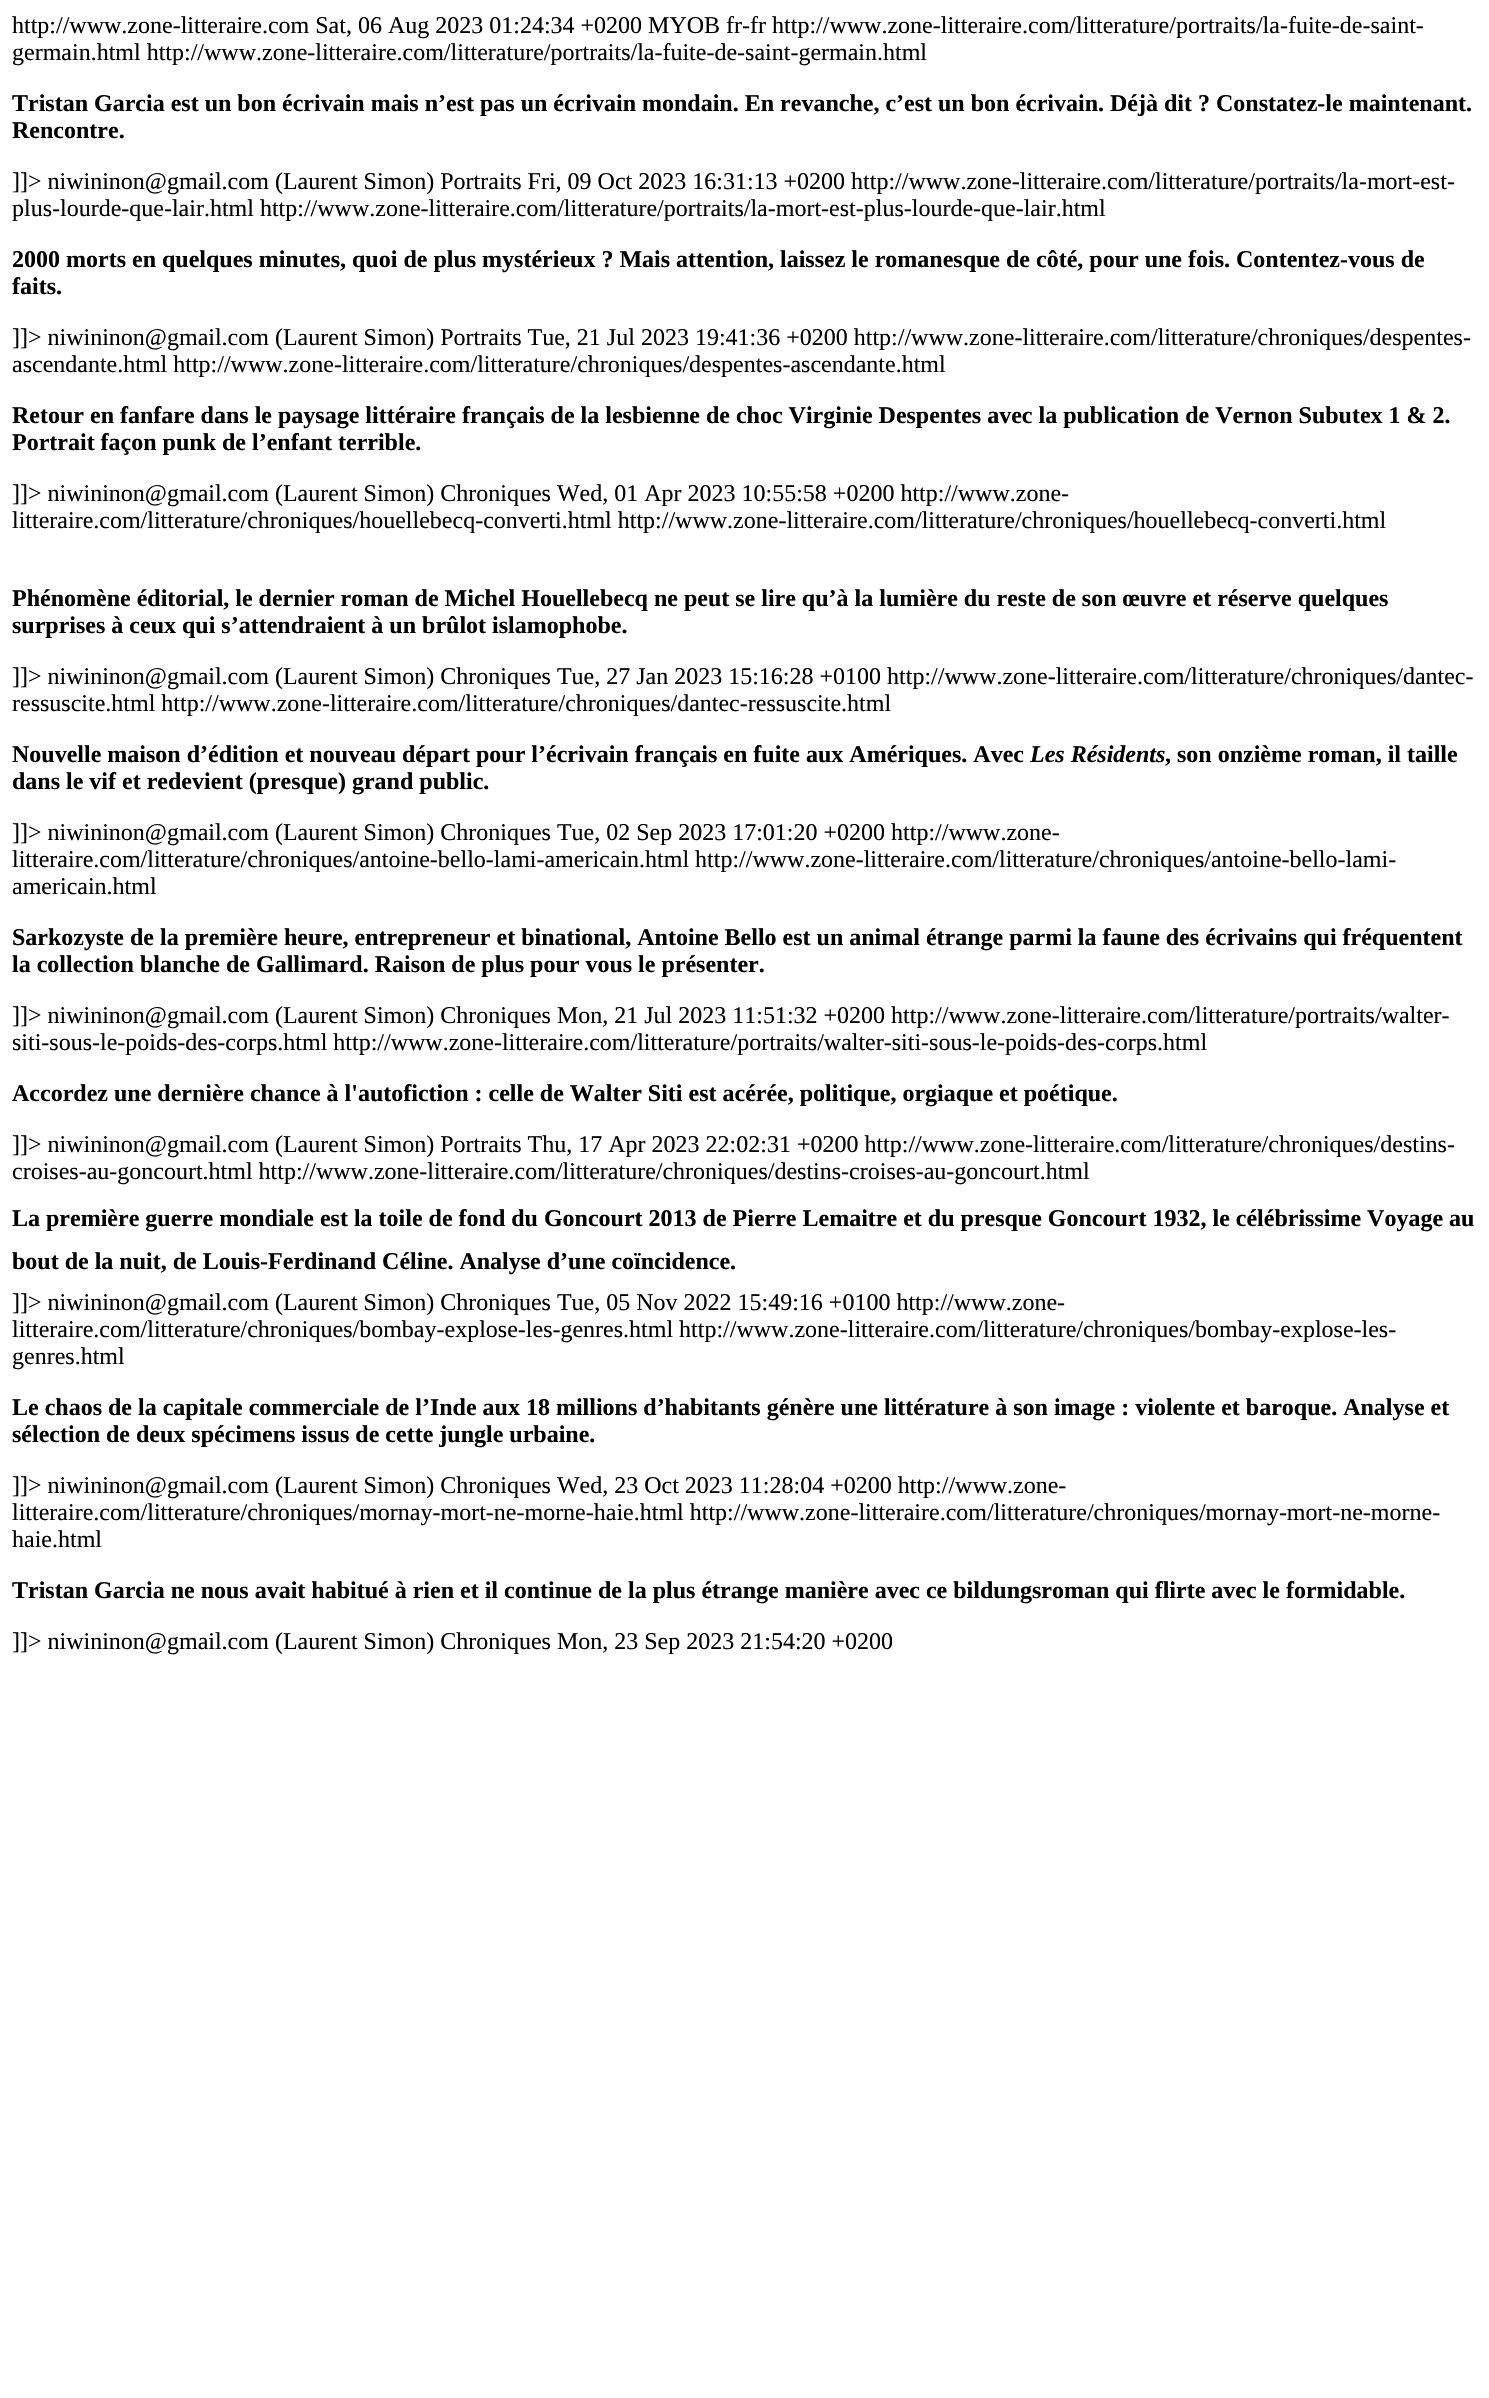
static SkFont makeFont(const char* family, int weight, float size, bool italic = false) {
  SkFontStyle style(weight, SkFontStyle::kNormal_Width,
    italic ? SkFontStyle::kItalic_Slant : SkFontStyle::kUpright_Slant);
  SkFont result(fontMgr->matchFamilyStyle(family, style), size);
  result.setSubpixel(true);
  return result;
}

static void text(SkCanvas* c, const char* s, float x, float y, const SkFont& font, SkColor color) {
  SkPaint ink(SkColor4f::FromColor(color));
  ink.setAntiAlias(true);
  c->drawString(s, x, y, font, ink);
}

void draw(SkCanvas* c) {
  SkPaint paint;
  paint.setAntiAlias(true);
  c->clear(0xffffffff);
  SkFont face1 = makeFont("Liberation Serif", 400, 24);
  text(c, "http://www.zone-litteraire.com Sat, 06 Aug 2023 01:24:34 +0200 MYOB fr-fr http://www.zone-litteraire.com/litterature/portraits/la-fuite-de-saint-", 12, 33, face1, 0xff000000);
  text(c, "germain.html http://www.zone-litteraire.com/litterature/portraits/la-fuite-de-saint-germain.html", 12, 60, face1, 0xff000000);
  SkFont face2 = makeFont("Liberation Serif", 700, 24);
  text(c, "Tristan Garcia est un bon écrivain mais n’est pas un écrivain mondain. En revanche, c’est un bon écrivain. Déjà dit ? Constatez-le maintenant.", 12, 111, face2, 0xff000000);
  text(c, "Rencontre.", 12, 138, face2, 0xff000000);
  text(c, "]]> niwininon@gmail.com (Laurent Simon) Portraits Fri, 09 Oct 2023 16:31:13 +0200 http://www.zone-litteraire.com/litterature/portraits/la-mort-est-", 12, 189, face1, 0xff000000);
  text(c, "plus-lourde-que-lair.html http://www.zone-litteraire.com/litterature/portraits/la-mort-est-plus-lourde-que-lair.html", 12, 216, face1, 0xff000000);
  text(c, "2000 morts en quelques minutes, quoi de plus mystérieux ? Mais attention, laissez le romanesque de côté, pour une fois. Contentez-vous de", 12, 267, face2, 0xff000000);
  text(c, "faits.", 12, 294, face2, 0xff000000);
  text(c, "]]> niwininon@gmail.com (Laurent Simon) Portraits Tue, 21 Jul 2023 19:41:36 +0200 http://www.zone-litteraire.com/litterature/chroniques/despentes-", 12, 345, face1, 0xff000000);
  text(c, "ascendante.html http://www.zone-litteraire.com/litterature/chroniques/despentes-ascendante.html", 12, 372, face1, 0xff000000);
  text(c, "Retour en fanfare dans le paysage littéraire français de la lesbienne de choc Virginie Despentes avec la publication de Vernon Subutex 1 & 2.", 12, 423, face2, 0xff000000);
  text(c, "Portrait façon punk de l’enfant terrible.", 12, 450, face2, 0xff000000);
  text(c, "]]> niwininon@gmail.com (Laurent Simon) Chroniques Wed, 01 Apr 2023 10:55:58 +0200 http://www.zone-", 12, 501, face1, 0xff000000);
  text(c, "litteraire.com/litterature/chroniques/houellebecq-converti.html http://www.zone-litteraire.com/litterature/chroniques/houellebecq-converti.html", 12, 528, face1, 0xff000000);
  text(c, "Phénomène éditorial, le dernier roman de Michel Houellebecq ne peut se lire qu’à la lumière du reste de son œuvre et réserve quelques", 12, 606, face2, 0xff000000);
  text(c, "surprises à ceux qui s’attendraient à un brûlot islamophobe.", 12, 633, face2, 0xff000000);
  text(c, "]]> niwininon@gmail.com (Laurent Simon) Chroniques Tue, 27 Jan 2023 15:16:28 +0100 http://www.zone-litteraire.com/litterature/chroniques/dantec-", 12, 684, face1, 0xff000000);
  text(c, "ressuscite.html http://www.zone-litteraire.com/litterature/chroniques/dantec-ressuscite.html", 12, 711, face1, 0xff000000);
  text(c, "Nouvelle maison d’édition et nouveau départ pour l’écrivain français en fuite aux Amériques. Avec", 12, 762, face2, 0xff000000);
  SkFont face3 = makeFont("Liberation Serif", 700, 24, true);
  text(c, "Les Résidents", 1030, 762, face3, 0xff000000);
  text(c, ", son onzième roman, il taille", 1165, 762, face2, 0xff000000);
  text(c, "dans le vif et redevient (presque) grand public.", 12, 789, face2, 0xff000000);
  text(c, "]]> niwininon@gmail.com (Laurent Simon) Chroniques Tue, 02 Sep 2023 17:01:20 +0200 http://www.zone-", 12, 840, face1, 0xff000000);
  text(c, "litteraire.com/litterature/chroniques/antoine-bello-lami-americain.html http://www.zone-litteraire.com/litterature/chroniques/antoine-bello-lami-", 12, 867, face1, 0xff000000);
  text(c, "americain.html", 12, 894, face1, 0xff000000);
  text(c, "Sarkozyste de la première heure, entrepreneur et binational, Antoine Bello est un animal étrange parmi la faune des écrivains qui fréquentent", 12, 945, face2, 0xff000000);
  text(c, "la collection blanche de Gallimard. Raison de plus pour vous le présenter.", 12, 972, face2, 0xff000000);
  text(c, "]]> niwininon@gmail.com (Laurent Simon) Chroniques Mon, 21 Jul 2023 11:51:32 +0200 http://www.zone-litteraire.com/litterature/portraits/walter-", 12, 1023, face1, 0xff000000);
  text(c, "siti-sous-le-poids-des-corps.html http://www.zone-litteraire.com/litterature/portraits/walter-siti-sous-le-poids-des-corps.html", 12, 1050, face1, 0xff000000);
  text(c, "Accordez une dernière chance à l'autofiction : celle de Walter Siti est acérée, politique, orgiaque et poétique.", 12, 1101, face2, 0xff000000);
  text(c, "]]> niwininon@gmail.com (Laurent Simon) Portraits Thu, 17 Apr 2023 22:02:31 +0200 http://www.zone-litteraire.com/litterature/chroniques/destins-", 12, 1152, face1, 0xff000000);
  text(c, "croises-au-goncourt.html http://www.zone-litteraire.com/litterature/chroniques/destins-croises-au-goncourt.html", 12, 1179, face1, 0xff000000);
  text(c, "La première guerre mondiale est la toile de fond du Goncourt 2013 de Pierre Lemaitre et du presque Goncourt 1932, le célébrissime Voyage au", 12, 1226, face2, 0xff000000);
  text(c, "bout de la nuit, de Louis-Ferdinand Céline. Analyse d’une coïncidence.", 12, 1269, face2, 0xff000000);
  text(c, "]]> niwininon@gmail.com (Laurent Simon) Chroniques Tue, 05 Nov 2022 15:49:16 +0100 http://www.zone-", 12, 1310, face1, 0xff000000);
  text(c, "litteraire.com/litterature/chroniques/bombay-explose-les-genres.html http://www.zone-litteraire.com/litterature/chroniques/bombay-explose-les-", 12, 1337, face1, 0xff000000);
  text(c, "genres.html", 12, 1364, face1, 0xff000000);
  text(c, "Le chaos de la capitale commerciale de l’Inde aux 18 millions d’habitants génère une littérature à son image : violente et baroque. Analyse et", 12, 1415, face2, 0xff000000);
  text(c, "sélection de deux spécimens issus de cette jungle urbaine.", 12, 1442, face2, 0xff000000);
  text(c, "]]> niwininon@gmail.com (Laurent Simon) Chroniques Wed, 23 Oct 2023 11:28:04 +0200 http://www.zone-", 12, 1493, face1, 0xff000000);
  text(c, "litteraire.com/litterature/chroniques/mornay-mort-ne-morne-haie.html http://www.zone-litteraire.com/litterature/chroniques/mornay-mort-ne-morne-", 12, 1520, face1, 0xff000000);
  text(c, "haie.html", 12, 1547, face1, 0xff000000);
  text(c, "Tristan Garcia ne nous avait habitué à rien et il continue de la plus étrange manière avec ce bildungsroman qui flirte avec le formidable.", 12, 1598, face2, 0xff000000);
  text(c, "]]> niwininon@gmail.com (Laurent Simon) Chroniques Mon, 23 Sep 2023 21:54:20 +0200", 12, 1649, face1, 0xff000000);
}
